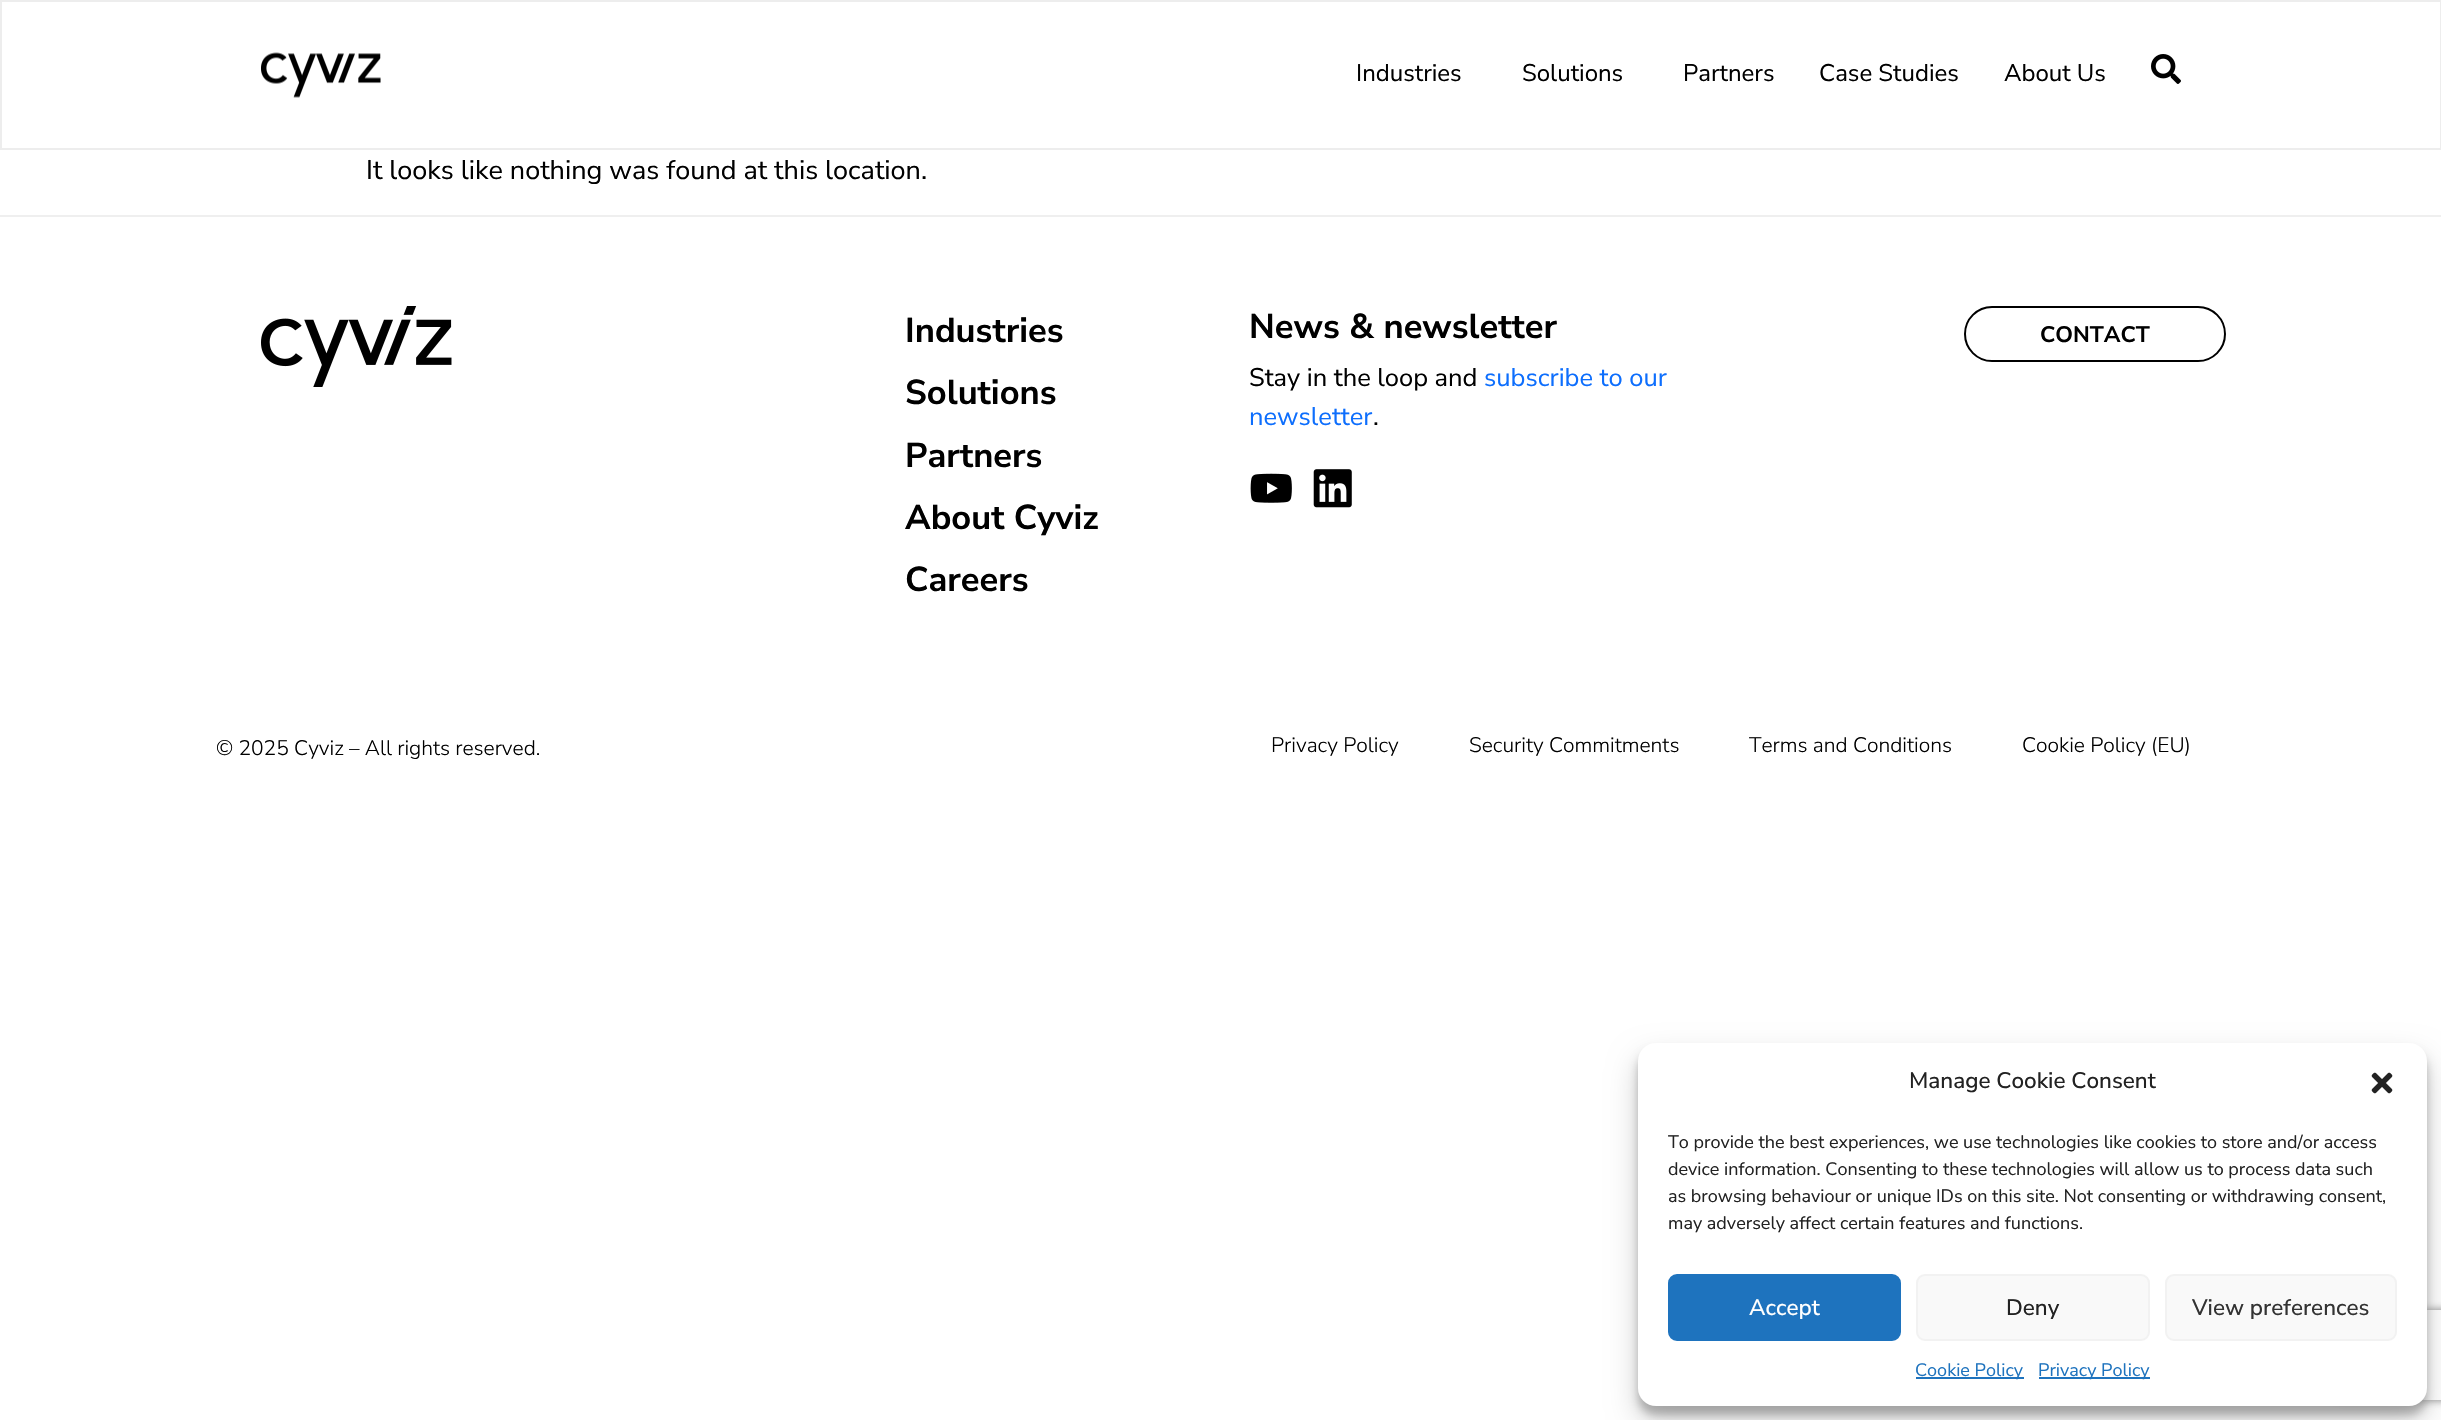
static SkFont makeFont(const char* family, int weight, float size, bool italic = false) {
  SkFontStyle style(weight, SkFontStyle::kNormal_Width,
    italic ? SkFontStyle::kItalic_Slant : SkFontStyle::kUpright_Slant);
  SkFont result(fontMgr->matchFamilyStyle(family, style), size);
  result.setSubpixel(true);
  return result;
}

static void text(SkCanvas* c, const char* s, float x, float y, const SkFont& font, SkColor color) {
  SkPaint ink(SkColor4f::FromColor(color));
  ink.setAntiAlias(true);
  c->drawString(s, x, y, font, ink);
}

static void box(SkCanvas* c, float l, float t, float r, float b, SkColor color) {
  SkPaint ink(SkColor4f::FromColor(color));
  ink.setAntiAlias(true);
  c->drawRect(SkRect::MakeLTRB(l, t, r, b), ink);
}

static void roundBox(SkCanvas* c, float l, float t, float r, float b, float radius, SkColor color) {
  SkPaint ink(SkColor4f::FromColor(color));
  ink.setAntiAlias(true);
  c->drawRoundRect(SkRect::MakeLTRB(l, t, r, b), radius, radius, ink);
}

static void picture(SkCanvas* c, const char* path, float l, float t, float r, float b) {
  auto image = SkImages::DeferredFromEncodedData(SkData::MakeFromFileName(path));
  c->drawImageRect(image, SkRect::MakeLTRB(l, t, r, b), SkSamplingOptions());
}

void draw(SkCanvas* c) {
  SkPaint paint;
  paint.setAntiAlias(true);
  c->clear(0xffffffff);
  paint.setStyle(SkPaint::kStroke_Style);
  paint.setStrokeWidth(2);
  paint.setColor(0xffededed);
  c->drawRect(SkRect::MakeLTRB(1, 1, 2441, 149), paint);
  picture(c, "img_01.png", 261, 52, 381, 98);
  SkFont face1 = makeFont("Nunito Sans", 400, 24);
  text(c, "Industries", 1356, 81, face1, 0xff000000);
  text(c, "Solutions", 1522, 81, face1, 0xff000000);
  text(c, "Partners", 1683, 81, face1, 0xff000000);
  text(c, "Case Studies", 1819, 81, face1, 0xff000000);
  text(c, "About Us", 2004, 81, face1, 0xff000000);
  picture(c, "img_02.png", 2151, 54, 2181, 84);
  SkFont face2 = makeFont("Nunito Sans", 400, 27);
  text(c, "It looks like nothing was found at this location.", 366, 179, face2, 0xff000000);
  box(c, 0, 215, 2441, 217, 0xffefefef);
  picture(c, "img_03.png", 261, 306, 452, 387);
  SkFont face3 = makeFont("Nunito Sans", 700, 34.5f);
  text(c, "Industries", 905, 342, face3, 0xff000000);
  text(c, "Solutions", 905, 404, face3, 0xff000000);
  text(c, "Partners", 905, 467, face3, 0xff000000);
  text(c, "About Cyviz", 905, 529, face3, 0xff000000);
  text(c, "Careers", 905, 591, face3, 0xff000000);
  text(c, "News & newsletter", 1249, 338, face3, 0xff000000);
  SkFont face4 = makeFont("Nunito Sans", 400, 25.5f);
  text(c, "Stay in the loop and", 1249, 386, face4, 0xff000000);
  text(c, "subscribe to our", 1484, 386, face4, 0xff0d6efd);
  text(c, "newsletter", 1249, 425, face4, 0xff0d6efd);
  text(c, ".", 1373, 425, face4, 0xff000000);
  picture(c, "img_04.png", 1250, 473, 1292, 503);
  picture(c, "img_05.png", 1313, 469, 1352, 508);
  paint.setColor(0xff000000);
  c->drawRoundRect(SkRect::MakeLTRB(1965, 307, 2225, 361), 27, 27, paint);
  SkFont face5 = makeFont("Nunito Sans", 700, 22.5f);
  text(c, "CONTACT", 2040, 342, face5, 0xff000000);
  SkFont face6 = makeFont("Nunito Sans", 300, 21);
  text(c, "© 2025 Cyviz – All rights reserved.", 216, 755, face6, 0xff000000);
  text(c, "Privacy Policy", 1271, 752, face6, 0xff000000);
  text(c, "Security Commitments", 1469, 752, face6, 0xff000000);
  text(c, "Terms and Conditions", 1749, 752, face6, 0xff000000);
  text(c, "Cookie Policy (EU)", 2022, 752, face6, 0xff000000);
  paint.setStyle(SkPaint::kFill_Style);
  paint.setColor(0x3b000000);
  paint.setMaskFilter(SkMaskFilter::MakeBlur(kNormal_SkBlurStyle, 4.5f));
  c->drawRoundRect(SkRect::MakeLTRB(1638, 1052, 2427, 1415), 18, 18, paint);
  paint.setMaskFilter(nullptr);
  paint.setColor(0x30000000);
  paint.setMaskFilter(SkMaskFilter::MakeBlur(kNormal_SkBlurStyle, 15));
  c->drawRoundRect(SkRect::MakeLTRB(1638, 1058, 2427, 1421), 18, 18, paint);
  paint.setMaskFilter(nullptr);
  c->save();
  c->clipPath(SkPathBuilder(SkPathFillType::kEvenOdd).moveTo(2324, 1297).lineTo(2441, 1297).lineTo(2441, 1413).lineTo(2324, 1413).close().moveTo(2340, 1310).lineTo(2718, 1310).cubicTo(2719.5f, 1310, 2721, 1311.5f, 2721, 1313).lineTo(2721, 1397).cubicTo(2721, 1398.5f, 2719.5f, 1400, 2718, 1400).lineTo(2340, 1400).cubicTo(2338.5f, 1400, 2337, 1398.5f, 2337, 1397).lineTo(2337, 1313).cubicTo(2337, 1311.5f, 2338.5f, 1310, 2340, 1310).close().detach(), true);
  paint.setColor(0xff808080);
  paint.setMaskFilter(SkMaskFilter::MakeBlur(kNormal_SkBlurStyle, 4));
  c->drawRoundRect(SkRect::MakeLTRB(2337, 1310, 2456, 1400), 3, 3, paint);
  paint.setMaskFilter(nullptr);
  c->restore();
  roundBox(c, 1638, 1043, 2427, 1406, 18, 0xffffffff);
  SkFont face7 = makeFont("Nunito Sans", 500, 22.5f);
  text(c, "Manage Cookie Consent", 1909, 1088, face7, 0xff222222);
  picture(c, "img_06.png", 2371, 1072, 2393, 1094);
  SkFont face8 = makeFont("Nunito Sans", 400, 18);
  text(c, "To provide the best experiences, we use technologies like cookies to store and/or access", 1668, 1148, face8, 0xff222222);
  text(c, "device information. Consenting to these technologies will allow us to process data such", 1668, 1175, face8, 0xff222222);
  text(c, "as browsing behaviour or unique IDs on this site. Not consenting or withdrawing consent,", 1668, 1202, face8, 0xff222222);
  text(c, "may adversely affect certain features and functions.", 1668, 1229, face8, 0xff222222);
  paint.setColor(0xff1e73be);
  c->drawRoundRect(SkRect::MakeLTRB(1669, 1275, 1900, 1340), 8, 8, paint);
  paint.setStyle(SkPaint::kStroke_Style);
  c->drawRoundRect(SkRect::MakeLTRB(1669, 1275, 1900, 1340), 8, 8, paint);
  text(c, "Accept", 1749, 1315, face7, 0xffffffff);
  paint.setStyle(SkPaint::kFill_Style);
  paint.setColor(0xfff9f9f9);
  c->drawRoundRect(SkRect::MakeLTRB(1917, 1275, 2149, 1340), 8, 8, paint);
  paint.setStyle(SkPaint::kStroke_Style);
  paint.setColor(0xfff2f2f2);
  c->drawRoundRect(SkRect::MakeLTRB(1917, 1275, 2149, 1340), 8, 8, paint);
  text(c, "Deny", 2006, 1315, face7, 0xff222222);
  paint.setStyle(SkPaint::kFill_Style);
  paint.setColor(0xfff9f9f9);
  c->drawRoundRect(SkRect::MakeLTRB(2166, 1275, 2396, 1340), 8, 8, paint);
  paint.setStyle(SkPaint::kStroke_Style);
  paint.setColor(0xfff2f2f2);
  c->drawRoundRect(SkRect::MakeLTRB(2166, 1275, 2396, 1340), 8, 8, paint);
  text(c, "View preferences", 2192, 1315, face7, 0xff333333);
  box(c, 1916, 1377, 2024, 1379, 0xff1e73be);
  text(c, "Cookie Policy", 1915, 1376, face8, 0xff1e73be);
  box(c, 2039, 1377, 2150, 1379, 0xff1e73be);
  text(c, "Privacy Policy", 2038, 1376, face8, 0xff1e73be);
}
